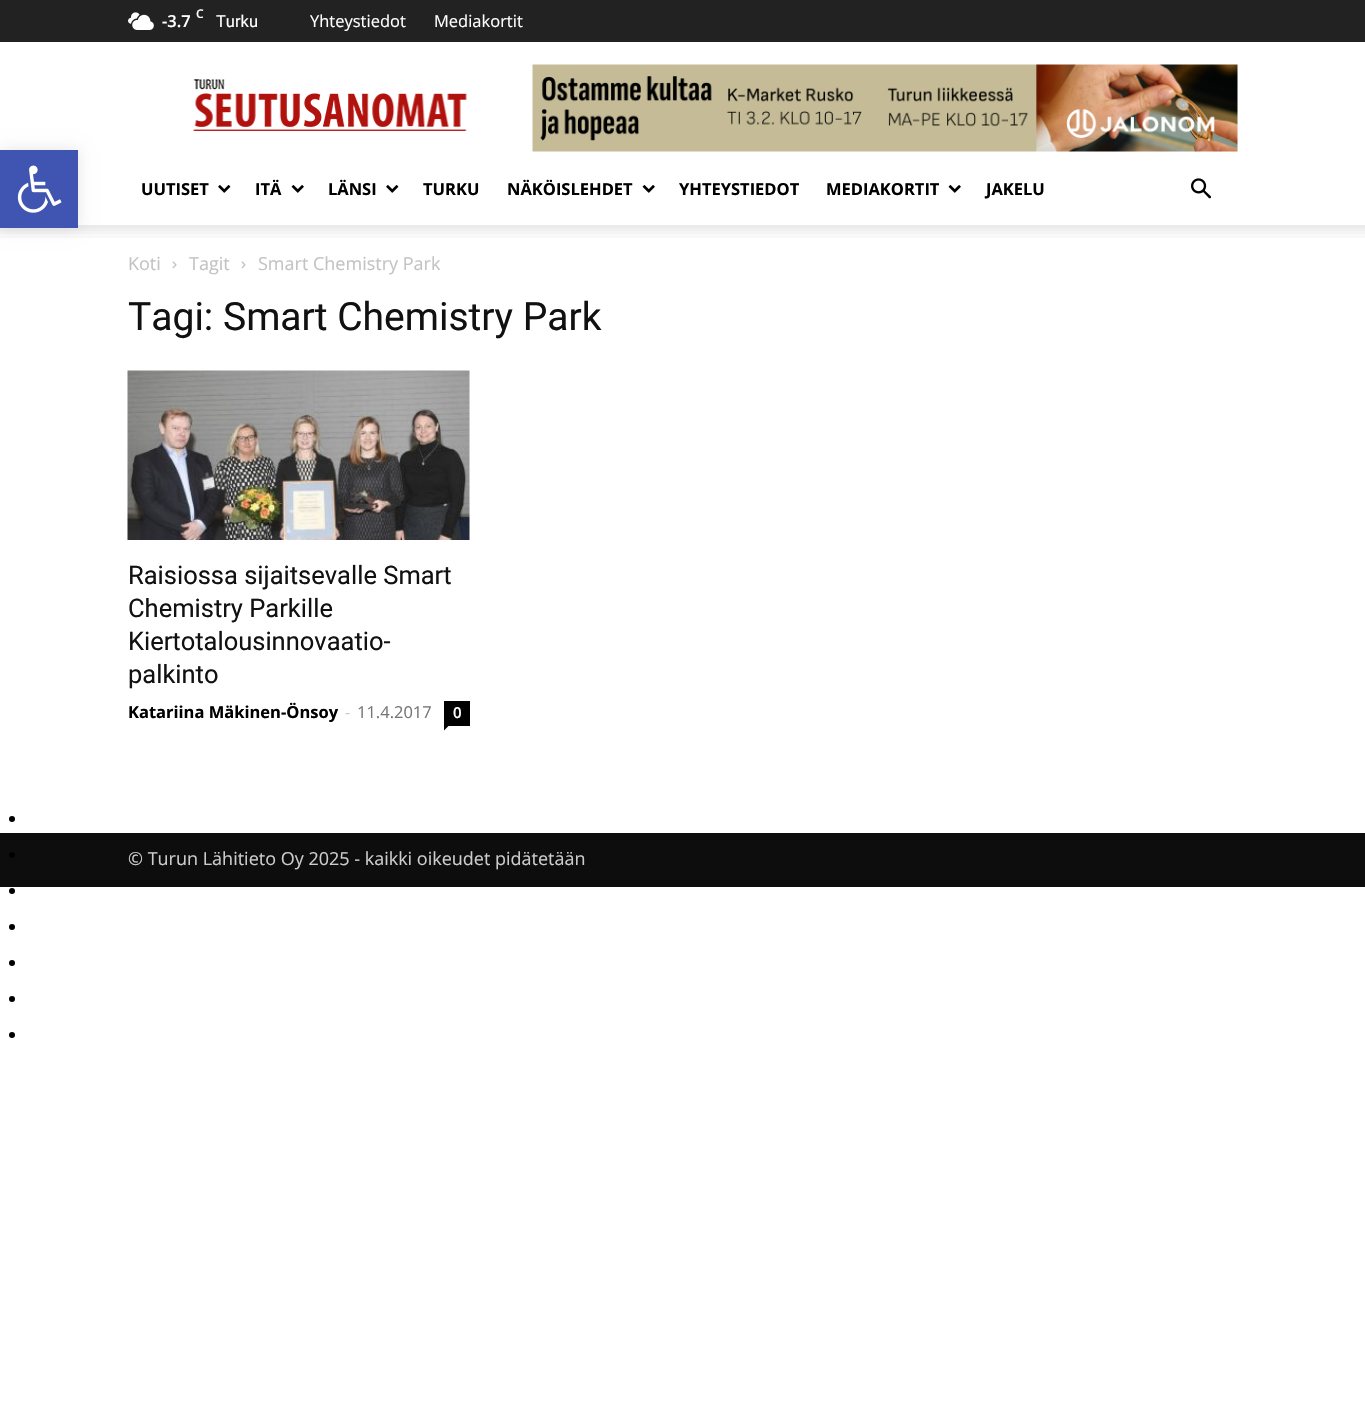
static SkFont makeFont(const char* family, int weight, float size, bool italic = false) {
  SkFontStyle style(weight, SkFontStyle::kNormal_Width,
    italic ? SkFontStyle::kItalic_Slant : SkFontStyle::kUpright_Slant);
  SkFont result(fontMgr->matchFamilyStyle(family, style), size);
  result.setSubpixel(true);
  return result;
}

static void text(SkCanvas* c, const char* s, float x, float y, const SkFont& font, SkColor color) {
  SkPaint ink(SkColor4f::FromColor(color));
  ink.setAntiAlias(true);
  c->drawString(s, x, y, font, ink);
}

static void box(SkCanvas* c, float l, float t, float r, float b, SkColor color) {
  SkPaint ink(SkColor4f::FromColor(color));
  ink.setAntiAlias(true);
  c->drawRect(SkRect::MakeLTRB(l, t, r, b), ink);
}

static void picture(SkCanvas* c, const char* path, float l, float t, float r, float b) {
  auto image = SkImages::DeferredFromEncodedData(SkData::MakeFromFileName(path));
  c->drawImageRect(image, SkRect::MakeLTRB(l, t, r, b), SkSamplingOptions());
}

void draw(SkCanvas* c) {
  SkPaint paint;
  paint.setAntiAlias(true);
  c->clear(0xffffffff);
  picture(c, "img_08.png", 0, 225, 1365, 238);
  paint.setColor(0x1a000000);
  paint.setMaskFilter(SkMaskFilter::MakeBlur(kNormal_SkBlurStyle, 7.5f));
  c->drawRect(SkRect::MakeLTRB(0, 150, 78, 228), paint);
  paint.setMaskFilter(nullptr);
  box(c, 0, 150, 78, 228, 0xff4054b2);
  picture(c, "img_01.png", 17, 165, 62, 213);
  box(c, 0, 0, 1365, 42, 0xff222222);
  picture(c, "img_02.png", 128, 12, 154, 30);
  SkFont face1 = makeFont("Open Sans", 600, 12);
  text(c, "C", 196, 18, face1, 0xffffffff);
  SkFont face2 = makeFont("Open Sans", 600, 16.5f);
  text(c, "-3.7", 162, 27, face2, 0xffffffff);
  SkFont face3 = makeFont("Roboto", 400, 16.5f);
  text(c, "Turku", 216, 27, face3, 0xffffffff);
  SkFont face4 = makeFont("Open Sans", 400, 16.5f);
  text(c, "Yhteystiedot", 310, 27, face4, 0xffffffff);
  text(c, "Mediakortit", 434, 27, face4, 0xffffffff);
  picture(c, "img_03.png", 193, 79, 467, 131);
  picture(c, "img_04.png", 532, 64, 1238, 152);
  SkFont face5 = makeFont("Open Sans", 700, 16.5f);
  text(c, "UUTISET", 141, 195, face5, 0xff000000);
  picture(c, "img_05.png", 218, 185, 231, 193);
  text(c, "ITÄ", 255, 195, face5, 0xff000000);
  picture(c, "img_06.png", 291, 185, 304, 193);
  text(c, "LÄNSI", 328, 195, face5, 0xff000000);
  picture(c, "img_05.png", 386, 185, 399, 193);
  text(c, "TURKU", 423, 195, face5, 0xff000000);
  text(c, "NÄKÖISLEHDET", 507, 195, face5, 0xff000000);
  picture(c, "img_06.png", 642, 185, 655, 193);
  text(c, "YHTEYSTIEDOT", 679, 195, face5, 0xff000000);
  text(c, "MEDIAKORTIT", 826, 195, face5, 0xff000000);
  picture(c, "img_06.png", 948, 185, 961, 193);
  text(c, "JAKELU", 986, 195, face5, 0xff000000);
  picture(c, "img_07.png", 1191, 178, 1211, 199);
  SkFont face6 = makeFont("Open Sans", 400, 18);
  text(c, "Koti", 128, 270, face6, 0xffc3c3c3);
  picture(c, "img_09.png", 172, 261, 177, 269);
  text(c, "Tagit", 189, 270, face6, 0xffc3c3c3);
  picture(c, "img_09.png", 241, 261, 246, 269);
  text(c, "Smart Chemistry Park", 258, 270, face6, 0xffc3c3c3);
  SkFont face7 = makeFont("Roboto", 400, 39);
  text(c, "Tagi: Smart Chemistry Park", 128, 330, face7, 0xff111111);
  picture(c, "img_10.png", 127, 370, 470, 540);
  SkFont face8 = makeFont("Roboto", 400, 25.5f);
  text(c, "Raisiossa sijaitsevalle Smart", 128, 584, face8, 0xff111111);
  text(c, "Chemistry Parkille", 128, 617, face8, 0xff111111);
  text(c, "Kiertotalousinnovaatio-", 128, 650, face8, 0xff111111);
  text(c, "palkinto", 128, 683, face8, 0xff111111);
  text(c, "Katariina Mäkinen-Önsoy", 128, 718, face5, 0xff000000);
  text(c, "-", 345, 718, face4, 0xffcccccc);
  text(c, "11.4.2017", 357, 718, face4, 0xff767676);
  box(c, 444, 701, 470, 726, 0xff000000);
  SkFont face9 = makeFont("Open Sans", 600, 15);
  text(c, "0", 453, 718, face9, 0xffffffff);
  paint.setColor(0xff000000);
  c->drawPath(SkPathBuilder().moveTo(444, 726).lineTo(448.5f, 726).lineTo(444, 730.5f).close().detach(), paint);
  box(c, 0, 833, 1365, 887, 0xff0d0d0d);
  text(c, "© Turun Lähitieto Oy 2025 - kaikki oikeudet pidätetään", 128, 865, face6, 0xffcccccc);
  c->drawCircle(12, 819, 3, paint);
  c->drawCircle(12, 855, 3, paint);
  c->drawCircle(12, 891, 3, paint);
  c->drawCircle(12, 927, 3, paint);
  c->drawCircle(12, 963, 3, paint);
  c->drawCircle(12, 999, 3, paint);
  c->drawCircle(12, 1035, 3, paint);
}
